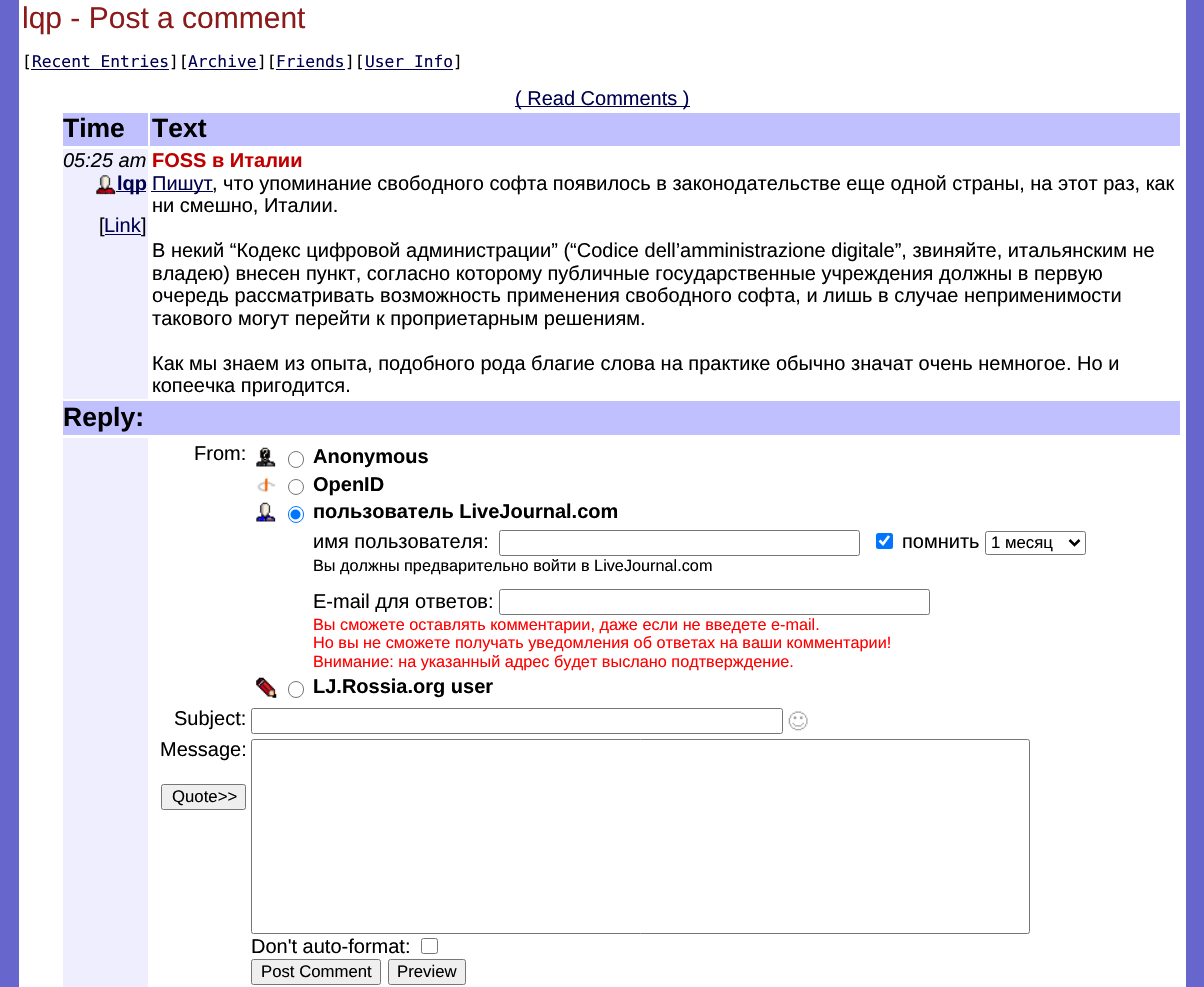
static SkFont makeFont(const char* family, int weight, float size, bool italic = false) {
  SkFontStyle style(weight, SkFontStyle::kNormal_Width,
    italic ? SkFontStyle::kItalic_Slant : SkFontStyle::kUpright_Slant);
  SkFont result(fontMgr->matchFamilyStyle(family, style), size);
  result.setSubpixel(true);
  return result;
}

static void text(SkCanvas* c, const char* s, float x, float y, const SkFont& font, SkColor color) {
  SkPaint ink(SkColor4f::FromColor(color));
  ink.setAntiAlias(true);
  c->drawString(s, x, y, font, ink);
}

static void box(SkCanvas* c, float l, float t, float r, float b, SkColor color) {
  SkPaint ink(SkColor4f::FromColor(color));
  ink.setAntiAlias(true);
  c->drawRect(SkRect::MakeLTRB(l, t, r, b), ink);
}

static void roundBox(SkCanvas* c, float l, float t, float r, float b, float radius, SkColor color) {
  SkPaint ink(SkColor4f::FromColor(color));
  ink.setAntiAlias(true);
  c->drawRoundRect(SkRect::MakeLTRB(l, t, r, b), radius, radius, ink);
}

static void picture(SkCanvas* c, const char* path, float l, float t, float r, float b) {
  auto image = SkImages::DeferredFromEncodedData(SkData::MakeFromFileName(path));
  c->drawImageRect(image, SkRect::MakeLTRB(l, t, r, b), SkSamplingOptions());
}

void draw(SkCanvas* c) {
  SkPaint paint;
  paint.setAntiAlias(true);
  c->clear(0xff6666cc);
  box(c, 19, 0, 1186, 987, 0xffffffff);
  SkFont face1 = makeFont("Liberation Sans", 400, 30);
  text(c, "lqp - Post a comment", 22, 28, face1, 0xff8b1a1a);
  SkFont face2 = makeFont("DejaVu Sans Mono", 400, 16.25f);
  text(c, "[", 22, 67, face2, 0xff000000);
  text(c, "Recent Entries", 32, 67, face2, 0xff000050);
  box(c, 31, 69, 169, 70, 0xff000050);
  text(c, "][", 169, 67, face2, 0xff000000);
  text(c, "Archive", 188, 67, face2, 0xff000050);
  box(c, 189, 69, 258, 70, 0xff000050);
  text(c, "][", 257, 67, face2, 0xff000000);
  text(c, "Friends", 276, 67, face2, 0xff000050);
  box(c, 276, 69, 345, 70, 0xff000050);
  text(c, "][", 345, 67, face2, 0xff000000);
  text(c, "User Info", 365, 67, face2, 0xff000050);
  box(c, 365, 69, 453, 70, 0xff000050);
  text(c, "]", 453, 67, face2, 0xff000000);
  box(c, 515, 106, 690, 107, 0xff000050);
  SkFont face3 = makeFont("Liberation Sans", 400, 20);
  text(c, "( Read Comments )", 515, 105, face3, 0xff000050);
  box(c, 63, 113, 148, 146, 0xffc0c0ff);
  SkFont face4 = makeFont("Liberation Sans", 700, 26.5f);
  text(c, "Time", 63, 137, face4, 0xff000000);
  box(c, 150, 113, 1180, 146, 0xffc0c0ff);
  text(c, "Text", 152, 137, face4, 0xff000000);
  box(c, 63, 149, 148, 399, 0xffeeeeff);
  SkFont face5 = makeFont("Liberation Sans", 400, 20, true);
  text(c, "05:25 am", 63, 167, face5, 0xff000000);
  picture(c, "img_01.png", 96, 175, 116, 195);
  box(c, 116, 191, 146, 192, 0xff000050);
  SkFont face6 = makeFont("Liberation Sans", 700, 20);
  text(c, "lqp", 117, 190, face6, 0xff000050);
  text(c, "[", 99, 232, face3, 0xff000000);
  text(c, "Link", 104, 232, face3, 0xff000050);
  box(c, 105, 234, 141, 235, 0xff000050);
  text(c, "]", 141, 232, face3, 0xff000000);
  text(c, "FOSS в Италии", 152, 167, face6, 0xffc00000);
  box(c, 151, 191, 213, 192, 0xff000050);
  text(c, "Пишут", 152, 190, face3, 0xff000050);
  text(c, ", что упоминание свободного софта появилось в законодательстве еще одной страны, на этот раз, как", 212, 190, face3, 0xff000000);
  text(c, "ни смешно, Италии.", 152, 212, face3, 0xff000000);
  text(c, "В некий “Кодекс цифровой администрации” (“Codice dell’amministrazione digitale”, звиняйте, итальянским не", 152, 257, face3, 0xff000000);
  text(c, "владею) внесен пункт, согласно которому публичные государственные учреждения должны в первую", 152, 280, face3, 0xff000000);
  text(c, "очередь рассматривать возможность применения свободного софта, и лишь в случае неприменимости", 152, 302, face3, 0xff000000);
  text(c, "такового могут перейти к проприетарным решениям.", 152, 325, face3, 0xff000000);
  text(c, "Как мы знаем из опыта, подобного рода благие слова на практике обычно значат очень немногое. Но и", 152, 370, face3, 0xff000000);
  text(c, "копеечка пригодится.", 152, 392, face3, 0xff000000);
  box(c, 63, 401, 1180, 435, 0xffc0c0ff);
  text(c, "Reply:", 63, 426, face4, 0xff000000);
  box(c, 63, 438, 148, 987, 0xffeeeeff);
  text(c, "From:", 194, 460, face3, 0xff000000);
  picture(c, "img_02.png", 256, 447, 276, 467);
  paint.setStyle(SkPaint::kStroke_Style);
  paint.setStrokeWidth(1);
  paint.setColor(0xff767676);
  c->drawRoundRect(SkRect::MakeLTRB(288.5f, 451.5f, 303.5f, 467.5f), 7.5f, 7.5f, paint);
  text(c, "Anonymous", 313, 463, face6, 0xff000000);
  picture(c, "img_03.png", 257, 477, 276, 492);
  c->drawCircle(296, 487, 7.5f, paint);
  text(c, "OpenID", 313, 491, face6, 0xff000000);
  picture(c, "img_04.png", 256, 502, 276, 522);
  paint.setColor(0xff0075ff);
  c->drawRoundRect(SkRect::MakeLTRB(288.5f, 506.5f, 303.5f, 522.5f), 7.5f, 7.5f, paint);
  paint.setStyle(SkPaint::kFill_Style);
  c->drawCircle(295.5f, 514.5f, 5, paint);
  text(c, "пользователь LiveJournal.com", 313, 518, face6, 0xff000000);
  text(c, "имя пользователя:", 313, 548, face3, 0xff000000);
  paint.setStyle(SkPaint::kStroke_Style);
  paint.setColor(0xff767676);
  c->drawRoundRect(SkRect::MakeLTRB(499.5f, 530.5f, 859.5f, 555.5f), 2, 2, paint);
  roundBox(c, 876, 533, 893, 549, 2.5f, 0xff0075ff);
  paint.setStrokeWidth(2.6f);
  paint.setColor(0xffffffff);
  c->drawPath(SkPathBuilder().moveTo(879.5f, 540.5f).lineTo(883, 544).lineTo(889, 536).detach(), paint);
  text(c, "помнить", 902, 548, face3, 0xff000000);
  paint.setStrokeWidth(1);
  paint.setColor(0xff767676);
  c->drawRoundRect(SkRect::MakeLTRB(985.5f, 531.5f, 1085.5f, 554.5f), 2, 2, paint);
  paint.setStrokeWidth(2.5f);
  paint.setColor(0xff000000);
  c->drawPath(SkPathBuilder().moveTo(1069.5f, 540).lineTo(1074.5f, 545).lineTo(1079.5f, 540).detach(), paint);
  SkFont face7 = makeFont("Liberation Sans", 400, 16.75f);
  text(c, "1 месяц", 991, 548, face7, 0xff000000);
  SkFont face8 = makeFont("Liberation Sans", 400, 16.25f);
  text(c, "Вы должны предварительно войти в LiveJournal.com", 313, 571, face8, 0xff000000);
  text(c, "E-mail для ответов:", 313, 608, face3, 0xff000000);
  paint.setStrokeWidth(1);
  paint.setColor(0xff767676);
  c->drawRoundRect(SkRect::MakeLTRB(499.5f, 589.5f, 929.5f, 614.5f), 2, 2, paint);
  text(c, "Вы сможете оставлять комментарии, даже если не введете e-mail.", 313, 630, face8, 0xffff0000);
  text(c, "Но вы не сможете получать уведомления об ответах на ваши комментарии!", 313, 648, face8, 0xffff0000);
  text(c, "Внимание: на указанный адрес будет выслано подтверждение.", 313, 667, face8, 0xffff0000);
  picture(c, "img_05.png", 256, 677, 277, 698);
  c->drawRoundRect(SkRect::MakeLTRB(288.5f, 681.5f, 303.5f, 697.5f), 7.5f, 7.5f, paint);
  text(c, "LJ.Rossia.org user", 313, 693, face6, 0xff000000);
  text(c, "Subject:", 174, 725, face3, 0xff000000);
  c->drawRoundRect(SkRect::MakeLTRB(251.5f, 708.5f, 782.5f, 733.5f), 2, 2, paint);
  picture(c, "img_06.png", 788, 711, 808, 731);
  text(c, "Message:", 160, 756, face3, 0xff000000);
  paint.setStyle(SkPaint::kFill_Style);
  paint.setColor(0xffefefef);
  c->drawRoundRect(SkRect::MakeLTRB(161.5f, 784.5f, 245.5f, 809.5f), 2, 2, paint);
  paint.setStyle(SkPaint::kStroke_Style);
  paint.setColor(0xff767676);
  c->drawRoundRect(SkRect::MakeLTRB(161.5f, 784.5f, 245.5f, 809.5f), 2, 2, paint);
  text(c, "Quote>>", 172, 802, face7, 0xff000000);
  c->drawRoundRect(SkRect::MakeLTRB(251.5f, 739.5f, 1029.5f, 933.5f), 2, 2, paint);
  text(c, "Don't auto-format:", 251, 953, face3, 0xff000000);
  c->drawRoundRect(SkRect::MakeLTRB(421.5f, 938.5f, 437.5f, 953.5f), 2, 2, paint);
  paint.setStyle(SkPaint::kFill_Style);
  paint.setColor(0xffefefef);
  c->drawRoundRect(SkRect::MakeLTRB(251.5f, 959.5f, 380.5f, 984.5f), 2, 2, paint);
  paint.setStyle(SkPaint::kStroke_Style);
  paint.setColor(0xff767676);
  c->drawRoundRect(SkRect::MakeLTRB(251.5f, 959.5f, 380.5f, 984.5f), 2, 2, paint);
  text(c, "Post Comment", 261, 977, face7, 0xff000000);
  paint.setStyle(SkPaint::kFill_Style);
  paint.setColor(0xffefefef);
  c->drawRoundRect(SkRect::MakeLTRB(388.5f, 959.5f, 465.5f, 984.5f), 2, 2, paint);
  paint.setStyle(SkPaint::kStroke_Style);
  paint.setColor(0xff767676);
  c->drawRoundRect(SkRect::MakeLTRB(388.5f, 959.5f, 465.5f, 984.5f), 2, 2, paint);
  text(c, "Preview", 397, 977, face7, 0xff000000);
}
